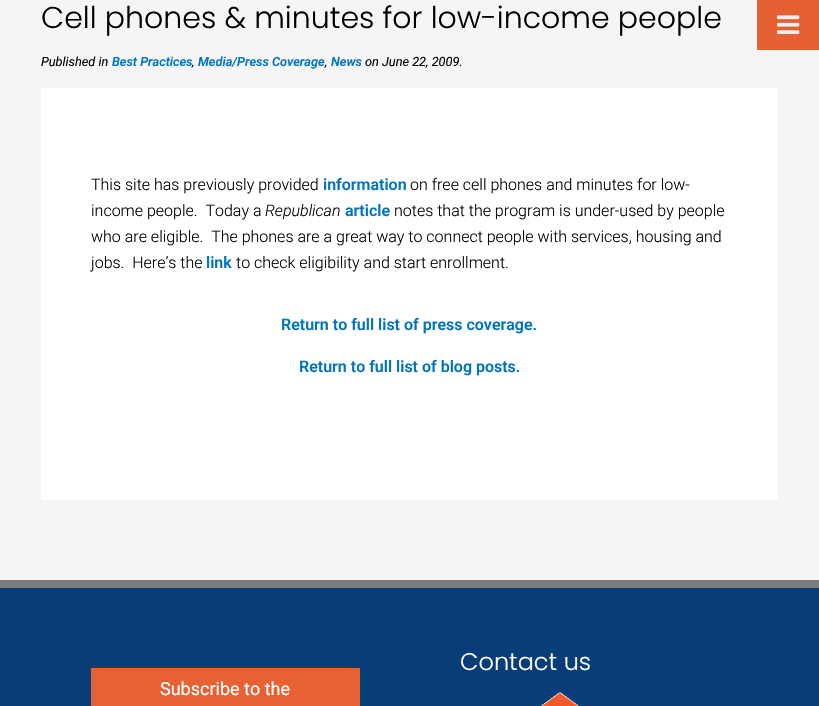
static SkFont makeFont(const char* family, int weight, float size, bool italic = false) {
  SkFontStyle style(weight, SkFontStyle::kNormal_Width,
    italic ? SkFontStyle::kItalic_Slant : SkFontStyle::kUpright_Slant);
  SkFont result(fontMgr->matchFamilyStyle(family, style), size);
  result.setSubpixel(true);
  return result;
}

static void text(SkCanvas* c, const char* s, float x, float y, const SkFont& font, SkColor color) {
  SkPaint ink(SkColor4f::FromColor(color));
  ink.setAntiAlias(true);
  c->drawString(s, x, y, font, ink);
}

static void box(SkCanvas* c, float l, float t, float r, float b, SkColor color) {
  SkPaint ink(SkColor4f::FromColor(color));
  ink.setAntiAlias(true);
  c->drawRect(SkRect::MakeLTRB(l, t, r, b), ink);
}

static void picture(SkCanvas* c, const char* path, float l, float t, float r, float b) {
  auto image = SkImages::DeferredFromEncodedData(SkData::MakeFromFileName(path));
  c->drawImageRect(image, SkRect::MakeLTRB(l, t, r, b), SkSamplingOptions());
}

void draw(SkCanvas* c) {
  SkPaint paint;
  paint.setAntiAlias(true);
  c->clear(0xfff5f5f5);
  SkFont face1 = makeFont("Poppins", 300, 30);
  text(c, "Cell phones & minutes for low-income people", 41, 28, face1, 0xff000000);
  SkFont face2 = makeFont("Roboto", 400, 12.75f, true);
  text(c, "Published in", 41, 66, face2, 0xff000000);
  SkFont face3 = makeFont("Roboto", 600, 12.75f, true);
  text(c, "Best Practices", 112, 66, face3, 0xff0274be);
  text(c, "Media/Press Coverage", 198, 66, face3, 0xff0274be);
  text(c, "News", 331, 66, face3, 0xff0274be);
  text(c, "on June 22, 2009.", 365, 66, face2, 0xff000000);
  text(c, ",", 192, 66, face2, 0xff000000);
  text(c, ",", 325, 66, face2, 0xff000000);
  box(c, 41, 88, 778, 500, 0xffffffff);
  SkFont face4 = makeFont("Roboto", 300, 16);
  text(c, "This site has previously provided", 91, 190, face4, 0xff000000);
  SkFont face5 = makeFont("Roboto", 600, 16);
  text(c, "information", 323, 190, face5, 0xff0274be);
  text(c, "on free cell phones and minutes for low-", 410, 190, face4, 0xff000000);
  text(c, "income people.  Today a", 91, 216, face4, 0xff000000);
  SkFont face6 = makeFont("Roboto", 300, 16, true);
  text(c, "Republican", 265, 216, face6, 0xff000000);
  text(c, "article", 345, 216, face5, 0xff0274be);
  text(c, "notes that the program is under-used by people", 394, 216, face4, 0xff000000);
  text(c, "who are eligible.  The phones are a great way to connect people with services, housing and", 91, 242, face4, 0xff000000);
  text(c, "jobs.  Here’s the", 91, 268, face4, 0xff000000);
  text(c, "link", 206, 268, face5, 0xff0274be);
  text(c, "to check eligibility and start enrollment.", 236, 268, face4, 0xff000000);
  text(c, "Return to full list of press coverage.", 281, 330, face5, 0xff0274be);
  text(c, "Return to full list of blog posts.", 299, 372, face5, 0xff0274be);
  box(c, 757, 0, 819, 50, 0xffe56133);
  picture(c, "img_01.png", 777, 15, 800, 34);
  box(c, 0, 588, 819, 706, 0xff083d77);
  box(c, 0, 580, 819, 588, 0xff7a7a7a);
  SkFont face7 = makeFont("Poppins", 300, 24);
  text(c, "Contact us", 460, 670, face7, 0xffffffff);
  picture(c, "img_02.png", 541, 692, 579, 706);
  box(c, 91, 668, 360, 706, 0xffe76133);
  SkFont face8 = makeFont("Roboto", 400, 18);
  text(c, "Subscribe to the", 160, 695, face8, 0xffffffff);
}
